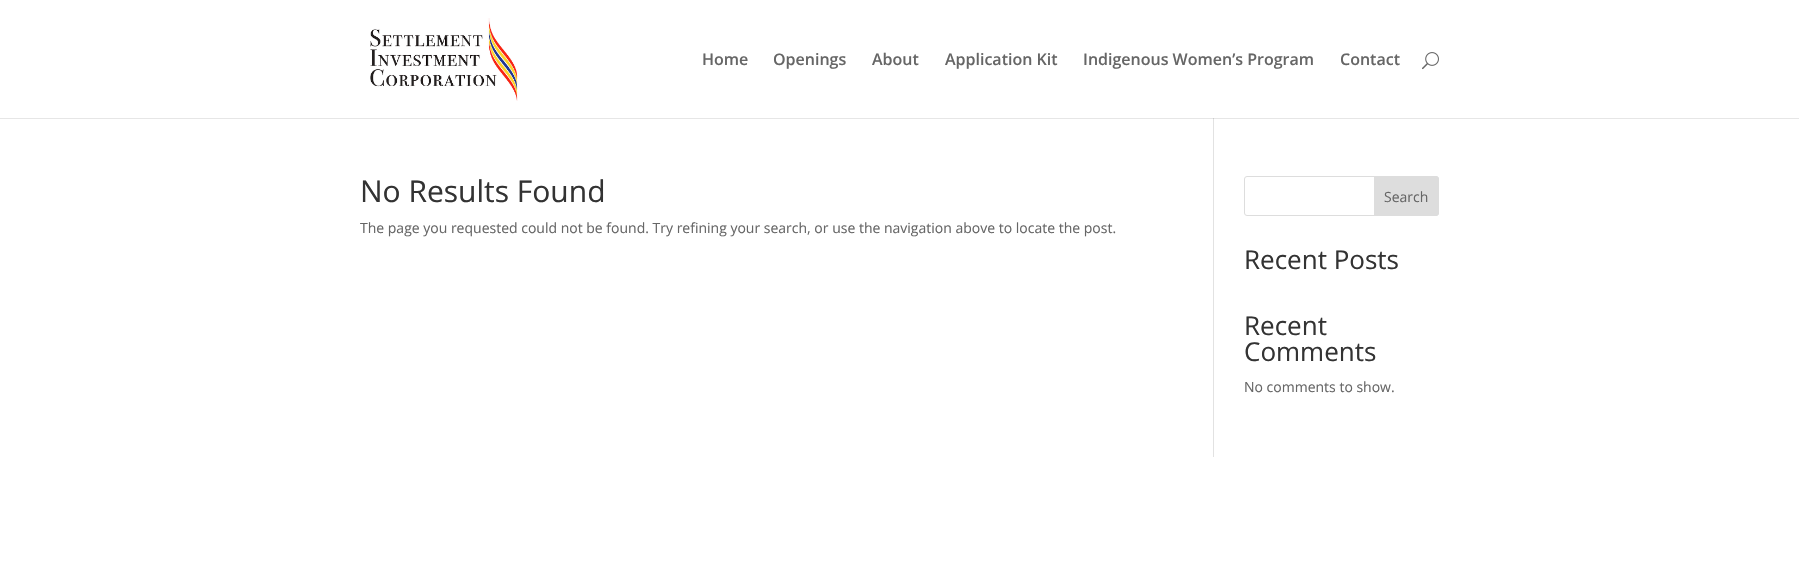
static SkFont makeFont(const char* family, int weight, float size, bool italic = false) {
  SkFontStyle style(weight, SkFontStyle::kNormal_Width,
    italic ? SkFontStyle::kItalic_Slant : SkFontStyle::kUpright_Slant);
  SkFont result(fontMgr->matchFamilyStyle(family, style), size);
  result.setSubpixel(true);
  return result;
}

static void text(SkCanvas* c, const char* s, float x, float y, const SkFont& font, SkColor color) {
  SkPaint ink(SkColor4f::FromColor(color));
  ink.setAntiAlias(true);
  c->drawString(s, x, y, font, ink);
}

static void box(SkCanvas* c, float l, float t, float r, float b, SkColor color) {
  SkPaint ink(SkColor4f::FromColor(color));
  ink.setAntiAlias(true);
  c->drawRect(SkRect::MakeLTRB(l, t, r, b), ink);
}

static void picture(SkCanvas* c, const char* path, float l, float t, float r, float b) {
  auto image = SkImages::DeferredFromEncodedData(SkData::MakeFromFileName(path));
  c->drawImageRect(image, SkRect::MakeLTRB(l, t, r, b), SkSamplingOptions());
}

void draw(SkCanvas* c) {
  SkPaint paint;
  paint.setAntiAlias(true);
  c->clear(0xffffffff);
  box(c, 0, 118, 1799, 119, 0xffe6e6e6);
  picture(c, "img_01.png", 370, 18, 518, 101);
  SkFont face1 = makeFont("Open Sans", 600, 16);
  text(c, "Home", 702, 65, face1, 0xff666666);
  text(c, "Openings", 773, 65, face1, 0xff666666);
  text(c, "About", 872, 65, face1, 0xff666666);
  text(c, "Application Kit", 945, 65, face1, 0xff666666);
  text(c, "Indigenous Women’s Program", 1083, 65, face1, 0xff666666);
  text(c, "Contact", 1340, 65, face1, 0xff666666);
  picture(c, "img_02.png", 1422, 52, 1439, 70);
  box(c, 1213, 118, 1214, 457, 0xffe2e2e2);
  box(c, 1213, 118, 1214, 119, 0xffcbcbcb);
  SkFont face2 = makeFont("Open Sans", 400, 30);
  text(c, "No Results Found", 360, 202, face2, 0xff333333);
  SkFont face3 = makeFont("Open Sans", 400, 14);
  text(c, "The page you requested could not be found. Try refining your search, or use the navigation above to locate the post.", 360, 233, face3, 0xff666666);
  paint.setStyle(SkPaint::kStroke_Style);
  paint.setStrokeWidth(1);
  paint.setColor(0xffdddddd);
  c->drawRoundRect(SkRect::MakeLTRB(1244.5f, 176.5f, 1438.5f, 215.5f), 2.5f, 2.5f, paint);
  paint.setStyle(SkPaint::kFill_Style);
  c->drawPath(SkPathBuilder().moveTo(1374.5f, 176.5f).lineTo(1436, 176.5f).cubicTo(1437.5f, 176.5f, 1438.5f, 177.5f, 1438.5f, 179).lineTo(1438.5f, 213).cubicTo(1438.5f, 214.5f, 1437.5f, 215.5f, 1436, 215.5f).lineTo(1374.5f, 215.5f).close().detach(), paint);
  paint.setStyle(SkPaint::kStroke_Style);
  c->drawPath(SkPathBuilder().moveTo(1374.5f, 176.5f).lineTo(1436, 176.5f).cubicTo(1437.5f, 176.5f, 1438.5f, 177.5f, 1438.5f, 179).lineTo(1438.5f, 213).cubicTo(1438.5f, 214.5f, 1437.5f, 215.5f, 1436, 215.5f).lineTo(1374.5f, 215.5f).close().detach(), paint);
  text(c, "Search", 1384, 202, face3, 0xff666666);
  SkFont face4 = makeFont("Open Sans", 400, 26);
  text(c, "Recent Posts", 1244, 269, face4, 0xff333333);
  text(c, "Recent", 1244, 335, face4, 0xff333333);
  text(c, "Comments", 1244, 361, face4, 0xff333333);
  text(c, "No comments to show.", 1244, 392, face3, 0xff666666);
}
